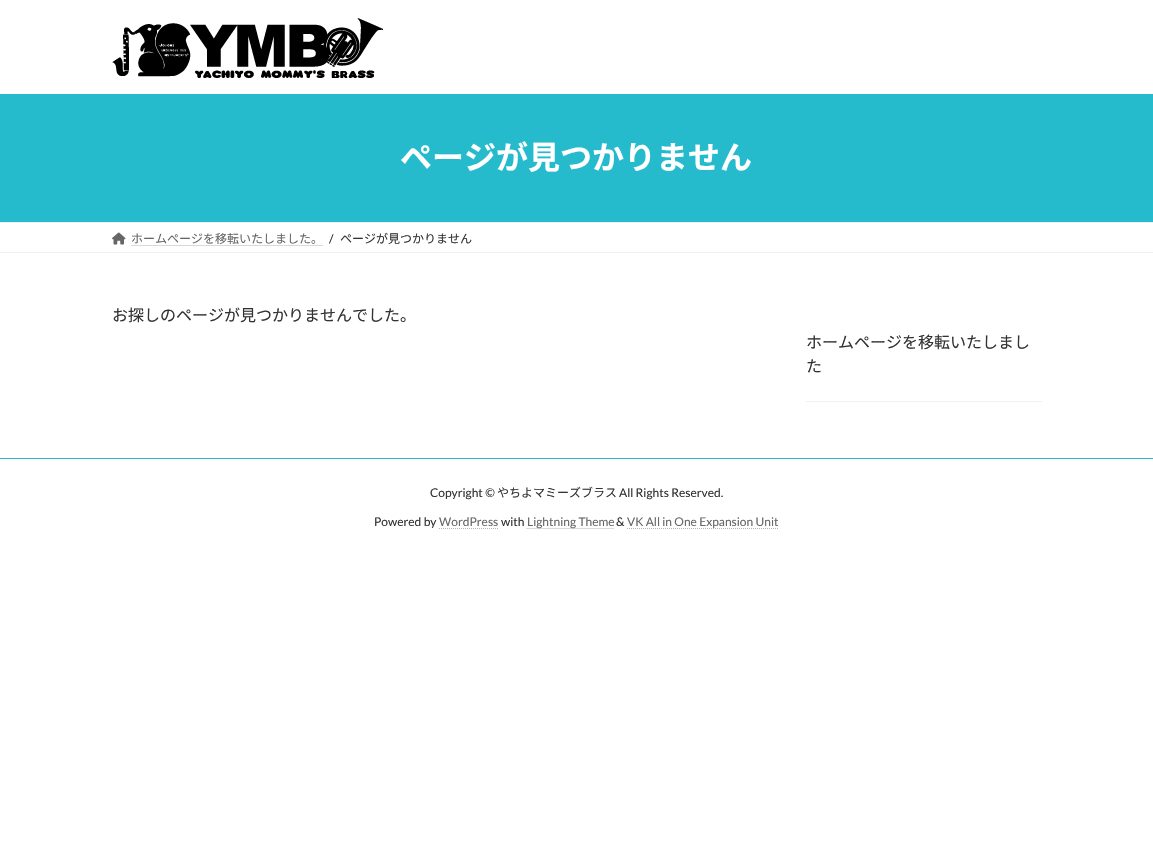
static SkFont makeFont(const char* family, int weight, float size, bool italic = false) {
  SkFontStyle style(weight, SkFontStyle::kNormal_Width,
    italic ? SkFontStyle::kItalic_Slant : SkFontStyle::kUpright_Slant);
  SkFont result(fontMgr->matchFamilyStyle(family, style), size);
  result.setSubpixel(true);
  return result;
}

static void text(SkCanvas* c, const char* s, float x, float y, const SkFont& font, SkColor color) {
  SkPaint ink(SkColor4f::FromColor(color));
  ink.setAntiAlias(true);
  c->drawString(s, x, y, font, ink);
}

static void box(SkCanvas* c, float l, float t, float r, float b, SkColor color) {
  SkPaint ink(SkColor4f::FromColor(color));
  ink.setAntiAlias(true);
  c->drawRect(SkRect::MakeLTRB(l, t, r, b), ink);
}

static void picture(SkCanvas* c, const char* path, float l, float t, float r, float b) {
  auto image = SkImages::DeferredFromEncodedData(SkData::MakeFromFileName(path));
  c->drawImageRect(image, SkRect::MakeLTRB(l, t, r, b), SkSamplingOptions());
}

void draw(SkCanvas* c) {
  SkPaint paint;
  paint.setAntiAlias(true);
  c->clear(0xffffffff);
  picture(c, "img_01.png", 112, 18, 383, 78);
  box(c, 0, 94, 1153, 222, 0xff26bbcc);
  SkFont face1 = makeFont("Noto Sans JP", 700, 32);
  text(c, "ページが見つかりません", 400, 169, face1, 0xffffffff);
  box(c, 0, 222, 1153, 223, 0xfff0f0f0);
  box(c, 0, 252, 1153, 253, 0xfff0f0f0);
  picture(c, "img_02.png", 112, 232, 126, 245);
  SkFont face2 = makeFont("Noto Sans JP", 400, 12);
  text(c, "ホームページを移転いたしました。", 131, 243, face2, 0xff666666);
  paint.setStyle(SkPaint::kStroke_Style);
  paint.setStrokeWidth(1);
  paint.setColor(0xffb3b3b3);
  paint.setPathEffect(SkDashPathEffect::Make({{1, 1}}, 0));
  c->drawPath(SkPathBuilder().moveTo(131.5f, 245.5f).lineTo(323.5f, 245.5f).detach(), paint);
  paint.setPathEffect(nullptr);
  SkFont face3 = makeFont("Lato", 400, 12);
  text(c, "/", 329, 243, face3, 0xff333333);
  text(c, "ページが見つかりません", 340, 243, face2, 0xff333333);
  SkFont face4 = makeFont("Noto Sans JP", 400, 16);
  text(c, "お探しのページが見つかりませんでした。", 112, 321, face4, 0xff333333);
  box(c, 806, 401, 1042, 402, 0xfff0f0f0);
  text(c, "ホームページを移転いたしまし", 806, 348, face4, 0xff333333);
  text(c, "た", 806, 372, face4, 0xff333333);
  box(c, 0, 458, 1153, 459, 0xff26bbcc);
  text(c, "Copyright ©", 430, 497, face3, 0xff333333);
  text(c, "やちよマミーズブラス", 497, 497, face2, 0xff333333);
  text(c, "All Rights Reserved.", 619, 497, face3, 0xff333333);
  text(c, "Powered by", 374, 526, face3, 0xff333333);
  text(c, "WordPress", 439, 526, face3, 0xff666666);
  paint.setPathEffect(SkDashPathEffect::Make({{1, 1}}, 0));
  c->drawPath(SkPathBuilder().moveTo(439, 528.5f).lineTo(498.5f, 528.5f).detach(), paint);
  paint.setPathEffect(nullptr);
  text(c, "with", 501, 526, face3, 0xff333333);
  paint.setPathEffect(SkDashPathEffect::Make({{1, 1}}, 0));
  c->drawPath(SkPathBuilder().moveTo(526.5f, 528.5f).lineTo(614, 528.5f).detach(), paint);
  paint.setPathEffect(nullptr);
  text(c, "Lightning Theme", 527, 526, face3, 0xff666666);
  text(c, "&", 616, 526, face3, 0xff333333);
  paint.setPathEffect(SkDashPathEffect::Make({{1, 1}}, 0));
  c->drawPath(SkPathBuilder().moveTo(627, 528.5f).lineTo(778.5f, 528.5f).detach(), paint);
  paint.setPathEffect(nullptr);
  text(c, "VK All in One Expansion Unit", 627, 526, face3, 0xff666666);
}
